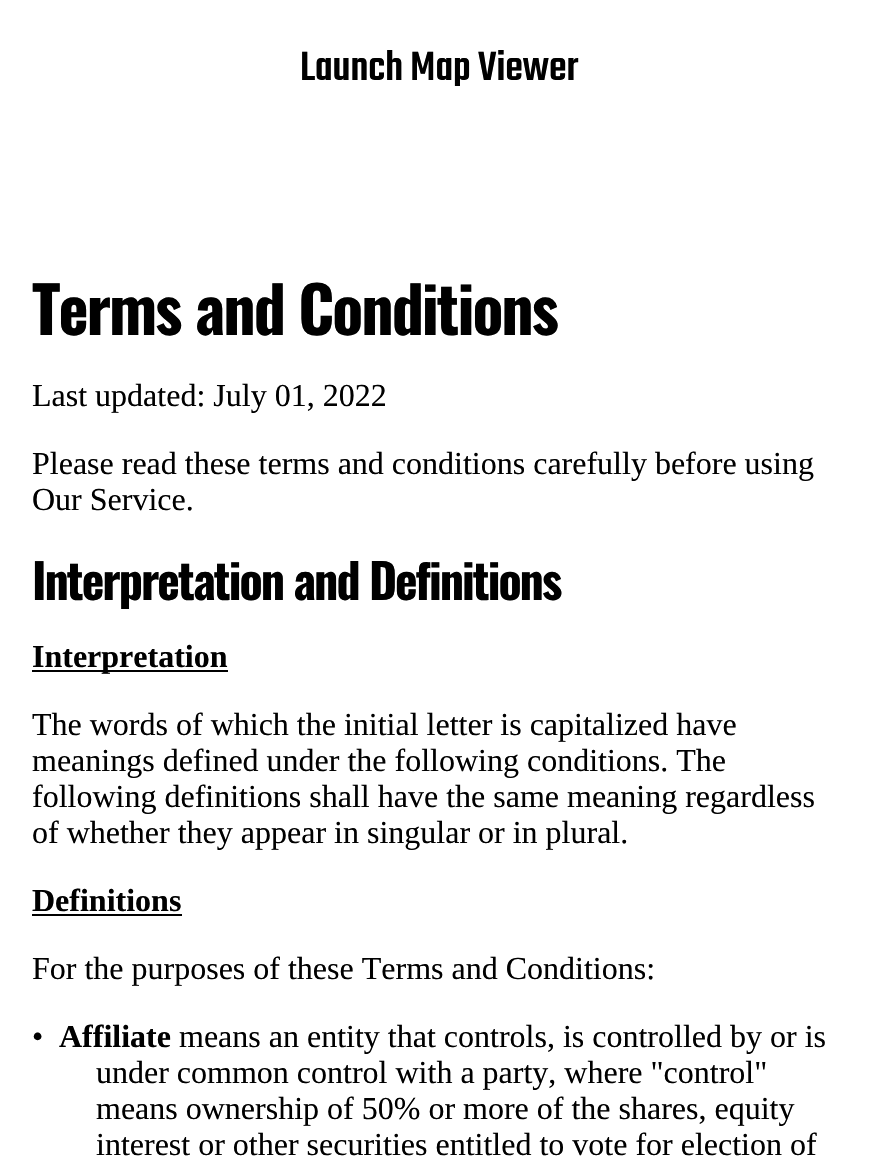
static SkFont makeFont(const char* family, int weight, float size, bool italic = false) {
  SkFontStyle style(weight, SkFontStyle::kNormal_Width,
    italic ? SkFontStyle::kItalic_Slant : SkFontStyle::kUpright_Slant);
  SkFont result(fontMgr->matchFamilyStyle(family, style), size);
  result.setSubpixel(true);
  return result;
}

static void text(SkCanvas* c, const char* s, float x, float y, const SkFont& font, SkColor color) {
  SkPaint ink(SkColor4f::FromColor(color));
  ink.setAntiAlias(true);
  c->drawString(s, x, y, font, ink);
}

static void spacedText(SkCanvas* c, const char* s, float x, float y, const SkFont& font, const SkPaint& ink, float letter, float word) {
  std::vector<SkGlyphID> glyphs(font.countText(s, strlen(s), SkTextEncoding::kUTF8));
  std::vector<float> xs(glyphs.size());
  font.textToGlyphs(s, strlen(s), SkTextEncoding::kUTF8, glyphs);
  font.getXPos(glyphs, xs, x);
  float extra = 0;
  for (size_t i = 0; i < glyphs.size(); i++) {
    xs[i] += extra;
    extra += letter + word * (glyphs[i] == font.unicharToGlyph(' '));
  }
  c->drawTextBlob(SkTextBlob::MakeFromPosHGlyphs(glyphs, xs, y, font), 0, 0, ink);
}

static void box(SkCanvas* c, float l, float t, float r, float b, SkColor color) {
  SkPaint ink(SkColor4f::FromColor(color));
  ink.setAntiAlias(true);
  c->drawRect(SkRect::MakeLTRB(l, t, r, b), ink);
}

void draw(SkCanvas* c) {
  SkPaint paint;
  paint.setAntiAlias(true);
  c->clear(0xffffffff);
  SkFont face1 = makeFont("Teko", 500, 44.75f);
  text(c, "Launch Map Viewer", 300, 80, face1, 0xff000000);
  SkFont face2 = makeFont("Oswald", 700, 64);
  paint.setColor(0xff000000);
  spacedText(c, "Terms and Conditions", 32, 335, face2, paint, -2, 0);
  SkFont face3 = makeFont("Liberation Serif", 400, 32);
  text(c, "Last updated: July 01, 2022", 32, 406, face3, 0xff000000);
  text(c, "Please read these terms and conditions carefully before using", 32, 474, face3, 0xff000000);
  text(c, "Our Service.", 32, 510, face3, 0xff000000);
  SkFont face4 = makeFont("Oswald", 700, 48);
  spacedText(c, "Interpretation and Definitions", 32, 600, face4, paint, -2, 0);
  box(c, 32, 670, 228, 672, 0xff000000);
  SkFont face5 = makeFont("Liberation Serif", 700, 32);
  text(c, "Interpretation", 32, 667, face5, 0xff000000);
  text(c, "The words of which the initial letter is capitalized have", 32, 735, face3, 0xff000000);
  text(c, "meanings defined under the following conditions. The", 32, 771, face3, 0xff000000);
  text(c, "following definitions shall have the same meaning regardless", 32, 807, face3, 0xff000000);
  text(c, "of whether they appear in singular or in plural.", 32, 843, face3, 0xff000000);
  text(c, "Definitions", 32, 911, face5, 0xff000000);
  box(c, 32, 914, 182, 916, 0xff000000);
  text(c, "For the purposes of these Terms and Conditions:", 32, 979, face3, 0xff000000);
  text(c, "•", 32, 1047, face3, 0xff000000);
  text(c, "Affiliate", 59, 1047, face5, 0xff000000);
  text(c, "means an entity that controls, is controlled by or is", 179, 1047, face3, 0xff000000);
  text(c, "under common control with a party, where \"control\"", 96, 1083, face3, 0xff000000);
  text(c, "means ownership of 50% or more of the shares, equity", 96, 1119, face3, 0xff000000);
  text(c, "interest or other securities entitled to vote for election of", 96, 1155, face3, 0xff000000);
}
